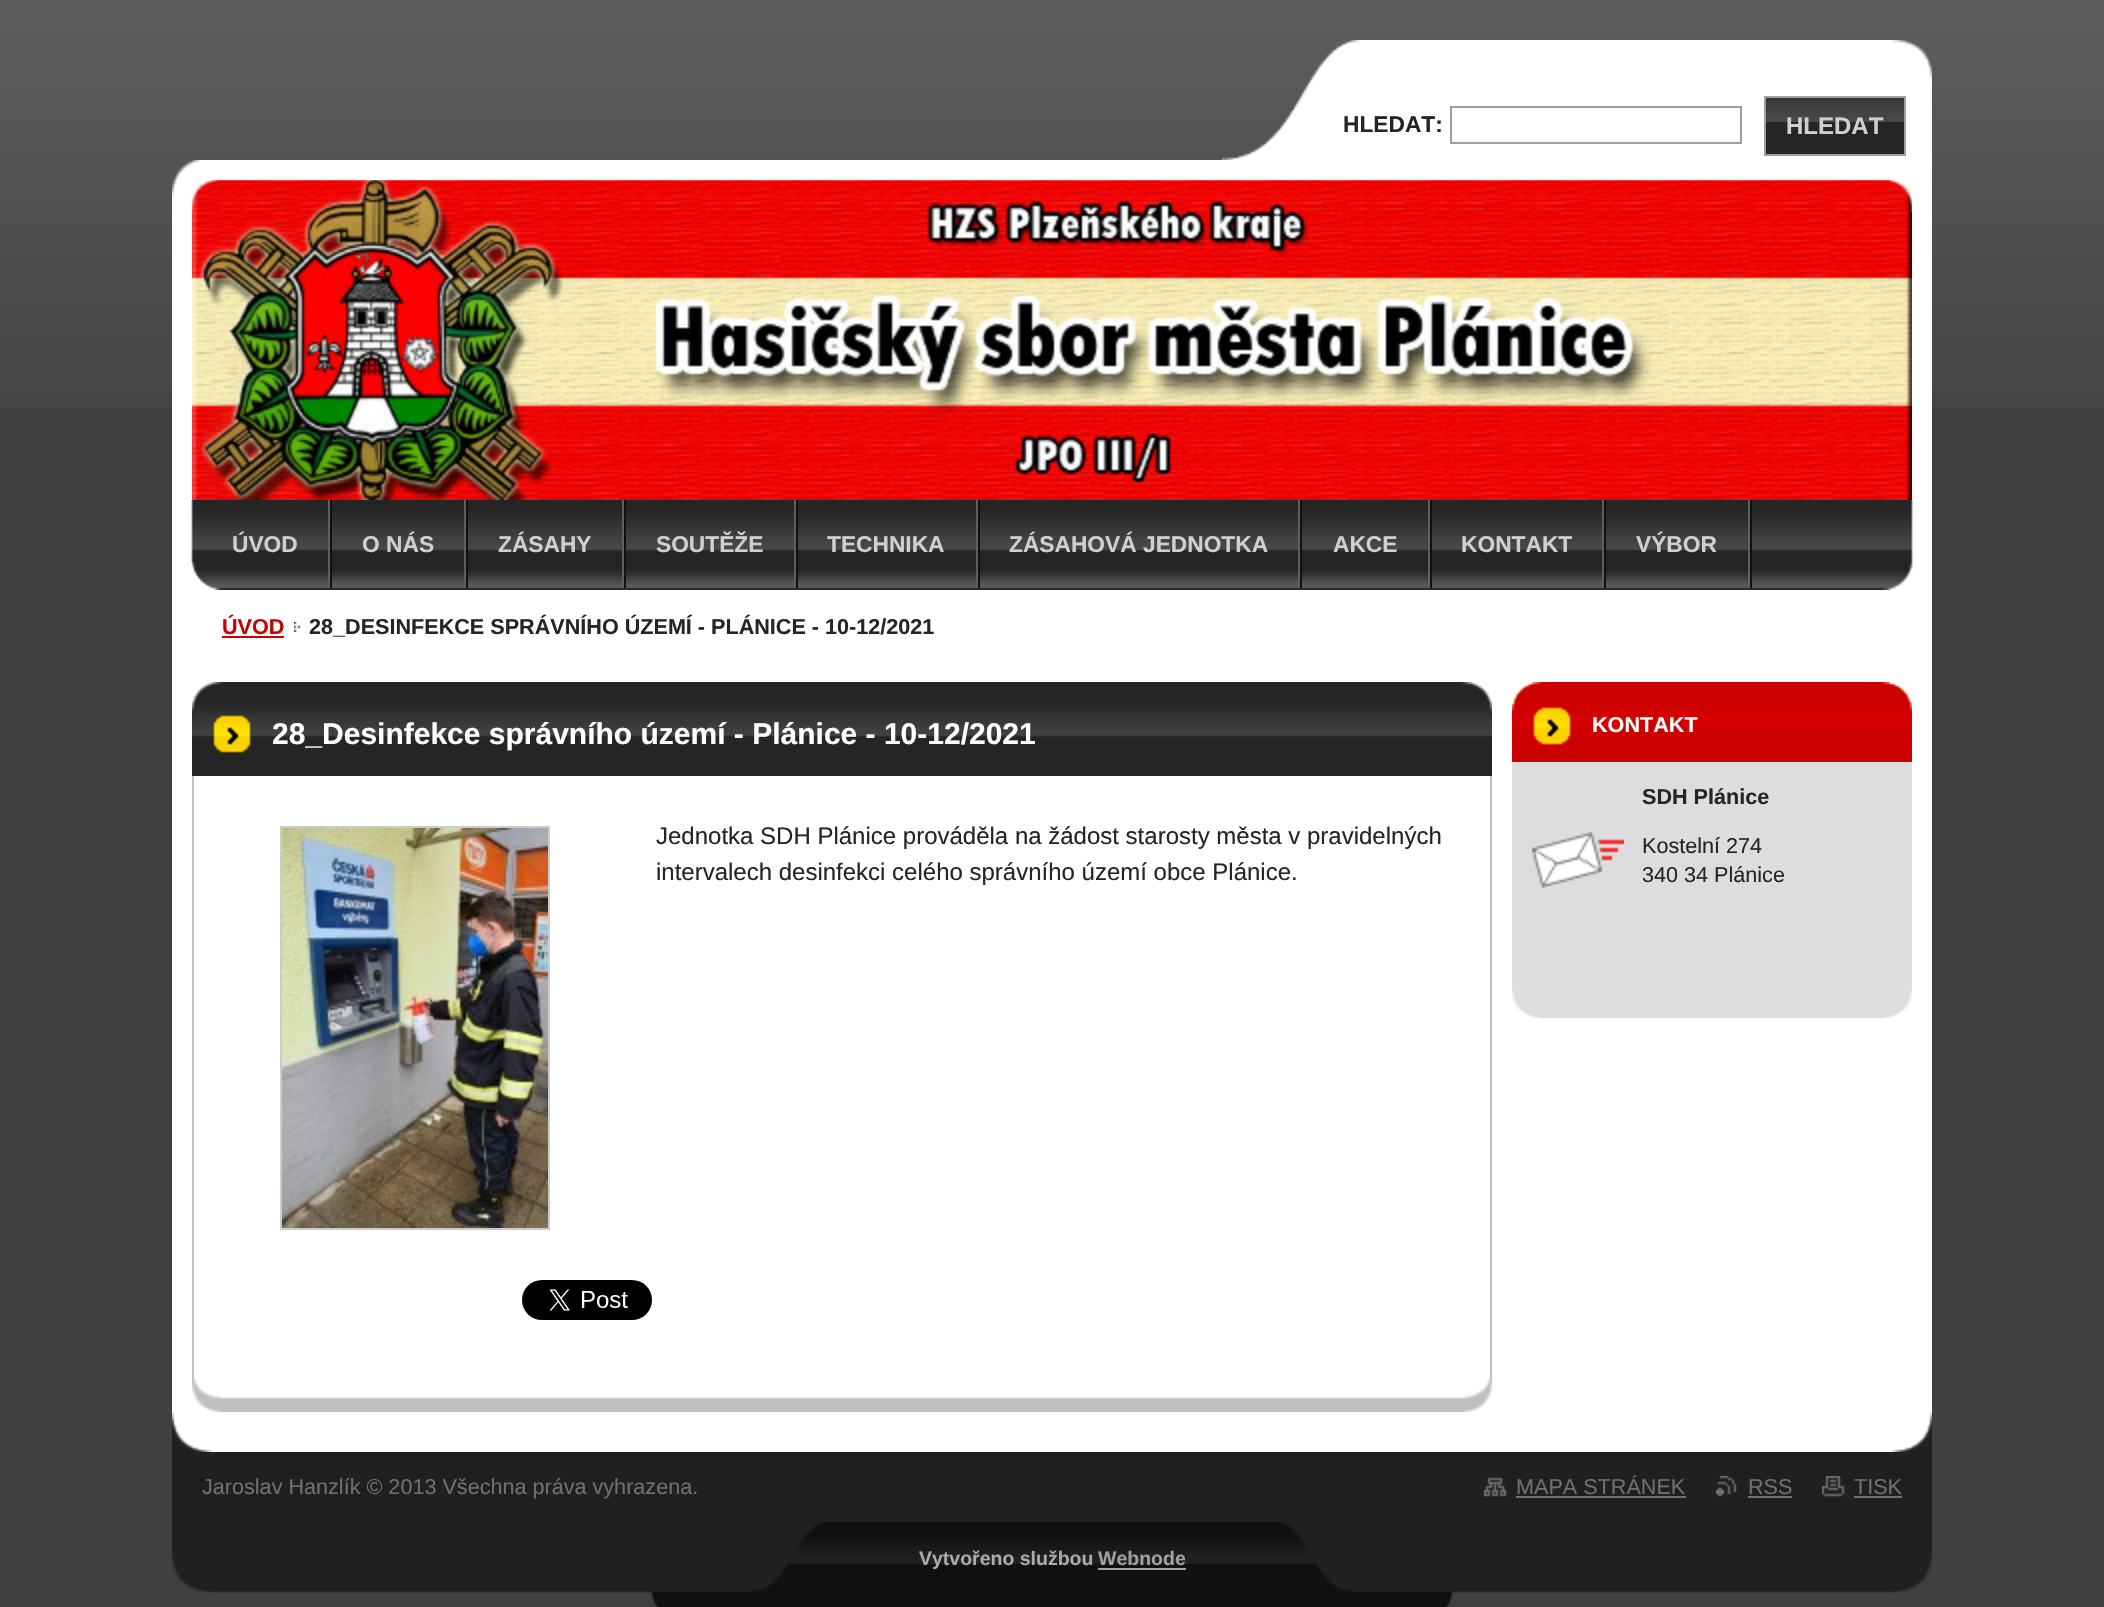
static SkFont makeFont(const char* family, int weight, float size, bool italic = false) {
  SkFontStyle style(weight, SkFontStyle::kNormal_Width,
    italic ? SkFontStyle::kItalic_Slant : SkFontStyle::kUpright_Slant);
  SkFont result(fontMgr->matchFamilyStyle(family, style), size);
  result.setSubpixel(true);
  return result;
}

static void text(SkCanvas* c, const char* s, float x, float y, const SkFont& font, SkColor color) {
  SkPaint ink(SkColor4f::FromColor(color));
  ink.setAntiAlias(true);
  c->drawString(s, x, y, font, ink);
}

static void box(SkCanvas* c, float l, float t, float r, float b, SkColor color) {
  SkPaint ink(SkColor4f::FromColor(color));
  ink.setAntiAlias(true);
  c->drawRect(SkRect::MakeLTRB(l, t, r, b), ink);
}

static void picture(SkCanvas* c, const char* path, float l, float t, float r, float b) {
  auto image = SkImages::DeferredFromEncodedData(SkData::MakeFromFileName(path));
  c->drawImageRect(image, SkRect::MakeLTRB(l, t, r, b), SkSamplingOptions());
}

void draw(SkCanvas* c) {
  SkPaint paint;
  paint.setAntiAlias(true);
  c->clear(0xff404040);
  picture(c, "img_01.png", 0, 0, 2104, 408);
  picture(c, "img_02.png", 1222, 40, 1932, 160);
  SkFont face1 = makeFont("Liberation Sans", 700, 22.75f);
  text(c, "HLEDAT:", 1343, 132, face1, 0xff252525);
  paint.setStyle(SkPaint::kStroke_Style);
  paint.setStrokeWidth(2);
  paint.setColor(0xff9f9f9f);
  c->drawRect(SkRect::MakeLTRB(1451, 107, 1741, 143), paint);
  box(c, 1766, 122, 1904, 154, 0xff252525);
  picture(c, "img_03.png", 1766, 98, 1904, 122);
  c->drawRect(SkRect::MakeLTRB(1765, 97, 1905, 155), paint);
  SkFont face2 = makeFont("Liberation Sans", 700, 24);
  text(c, "HLEDAT", 1786, 134, face2, 0xffd0d0d0);
  picture(c, "img_04.png", 172, 160, 1932, 500);
  picture(c, "img_06.png", 192, 180, 1912, 500);
  picture(c, "img_05.png", 172, 160, 1912, 212);
  picture(c, "img_07.png", 172, 500, 1932, 590);
  box(c, 330, 500, 332, 588, 0xff101010);
  box(c, 328, 500, 330, 588, 0xff5f5f5f);
  text(c, "ÚVOD", 232, 552, face1, 0xffd0d0d0);
  box(c, 466, 500, 468, 588, 0xff101010);
  box(c, 464, 500, 466, 588, 0xff5f5f5f);
  text(c, "O NÁS", 362, 552, face1, 0xffd0d0d0);
  box(c, 624, 500, 626, 588, 0xff101010);
  box(c, 622, 500, 624, 588, 0xff5f5f5f);
  text(c, "ZÁSAHY", 498, 552, face1, 0xffd0d0d0);
  box(c, 796, 500, 798, 588, 0xff101010);
  box(c, 794, 500, 796, 588, 0xff5f5f5f);
  text(c, "SOUTĚŽE", 656, 552, face1, 0xffd0d0d0);
  box(c, 978, 500, 980, 588, 0xff101010);
  box(c, 976, 500, 978, 588, 0xff5f5f5f);
  text(c, "TECHNIKA", 827, 552, face1, 0xffd0d0d0);
  box(c, 1300, 500, 1302, 588, 0xff101010);
  box(c, 1298, 500, 1300, 588, 0xff5f5f5f);
  text(c, "ZÁSAHOVÁ JEDNOTKA", 1009, 552, face1, 0xffd0d0d0);
  box(c, 1430, 500, 1432, 588, 0xff101010);
  box(c, 1428, 500, 1430, 588, 0xff5f5f5f);
  text(c, "AKCE", 1333, 552, face1, 0xffd0d0d0);
  box(c, 1604, 500, 1606, 588, 0xff101010);
  box(c, 1602, 500, 1604, 588, 0xff5f5f5f);
  text(c, "KONTAKT", 1461, 552, face1, 0xffd0d0d0);
  box(c, 1750, 500, 1752, 588, 0xff101010);
  box(c, 1748, 500, 1750, 588, 0xff5f5f5f);
  text(c, "VÝBOR", 1636, 552, face1, 0xffd0d0d0);
  picture(c, "img_08.png", 191, 562, 218, 590);
  box(c, 172, 590, 1932, 1452, 0xffffffff);
  SkFont face3 = makeFont("Liberation Sans", 700, 21.6f);
  text(c, "ÚVOD", 222, 634, face3, 0xffcc0000);
  box(c, 222, 636, 284, 638, 0xffcc0000);
  picture(c, "img_09.png", 294, 622, 300, 632);
  text(c, "28_DESINFEKCE SPRÁVNÍHO ÚZEMÍ - PLÁNICE - 10-12/2021", 309, 634, face3, 0xff252525);
  picture(c, "img_10.png", 172, 1412, 1932, 1452);
  picture(c, "img_11.png", 192, 682, 1492, 712);
  box(c, 1490, 776, 1492, 1378, 0xffc0c0c0);
  box(c, 192, 776, 194, 1378, 0xffc0c0c0);
  picture(c, "img_12.png", 192, 1378, 1492, 1412);
  box(c, 192, 753, 1492, 776, 0xff252525);
  picture(c, "img_13.png", 192, 712, 1492, 753);
  SkFont face4 = makeFont("Liberation Sans", 700, 30);
  text(c, "28_Desinfekce správního území - Plánice - 10-12/2021", 272, 744, face4, 0xffffffff);
  paint.setColor(0xffcccccc);
  c->drawRect(SkRect::MakeLTRB(281, 827, 549, 1229), paint);
  picture(c, "img_14.png", 282, 828, 548, 1228);
  SkFont face5 = makeFont("Liberation Sans", 400, 24);
  text(c, "Jednotka SDH Plánice prováděla na žádost starosty města v pravidelných", 656, 844, face5, 0xff252525);
  text(c, "intervalech desinfekci celého správního území obce Plánice.", 656, 880, face5, 0xff252525);
  picture(c, "img_15.png", 522, 1280, 652, 1320);
  box(c, 1512, 762, 1912, 990, 0xffdddddd);
  picture(c, "img_16.png", 1512, 990, 1912, 1018);
  picture(c, "img_18.png", 1512, 682, 1912, 745);
  picture(c, "img_17.png", 1512, 682, 1912, 705);
  box(c, 1512, 745, 1912, 762, 0xffcc0000);
  text(c, "KONTAKT", 1592, 732, face3, 0xffffffff);
  text(c, "SDH Plánice", 1642, 804, face3, 0xff252525);
  picture(c, "img_19.png", 1532, 832, 1624, 888);
  SkFont face6 = makeFont("Liberation Sans", 400, 21.6f);
  text(c, "Kostelní 274", 1642, 853, face6, 0xff252525);
  text(c, "340 34 Plánice", 1642, 882, face6, 0xff252525);
  box(c, 172, 1452, 1932, 1522, 0xff202020);
  text(c, "Jaroslav Hanzlík © 2013 Všechna práva vyhrazena.", 202, 1494, face6, 0xff707070);
  picture(c, "img_20.png", 1484, 1477, 1507, 1497);
  text(c, "MAPA STRÁNEK", 1516, 1494, face6, 0xff707070);
  box(c, 1516, 1496, 1686, 1498, 0xff707070);
  picture(c, "img_21.png", 1716, 1476, 1737, 1497);
  text(c, "RSS", 1748, 1494, face6, 0xff707070);
  box(c, 1748, 1496, 1792, 1498, 0xff707070);
  picture(c, "img_22.png", 1822, 1476, 1845, 1497);
  text(c, "TISK", 1854, 1494, face6, 0xff707070);
  box(c, 1854, 1496, 1902, 1498, 0xff707070);
  picture(c, "img_23.png", 172, 1522, 1932, 1607);
  SkFont face7 = makeFont("Liberation Sans", 700, 19.5f);
  text(c, "Vytvořeno službou", 919, 1565, face7, 0xffaaaaaa);
  text(c, "Webnode", 1098, 1565, face7, 0xffa0a0a0);
  box(c, 1098, 1568, 1186, 1570, 0xffa0a0a0);
}
